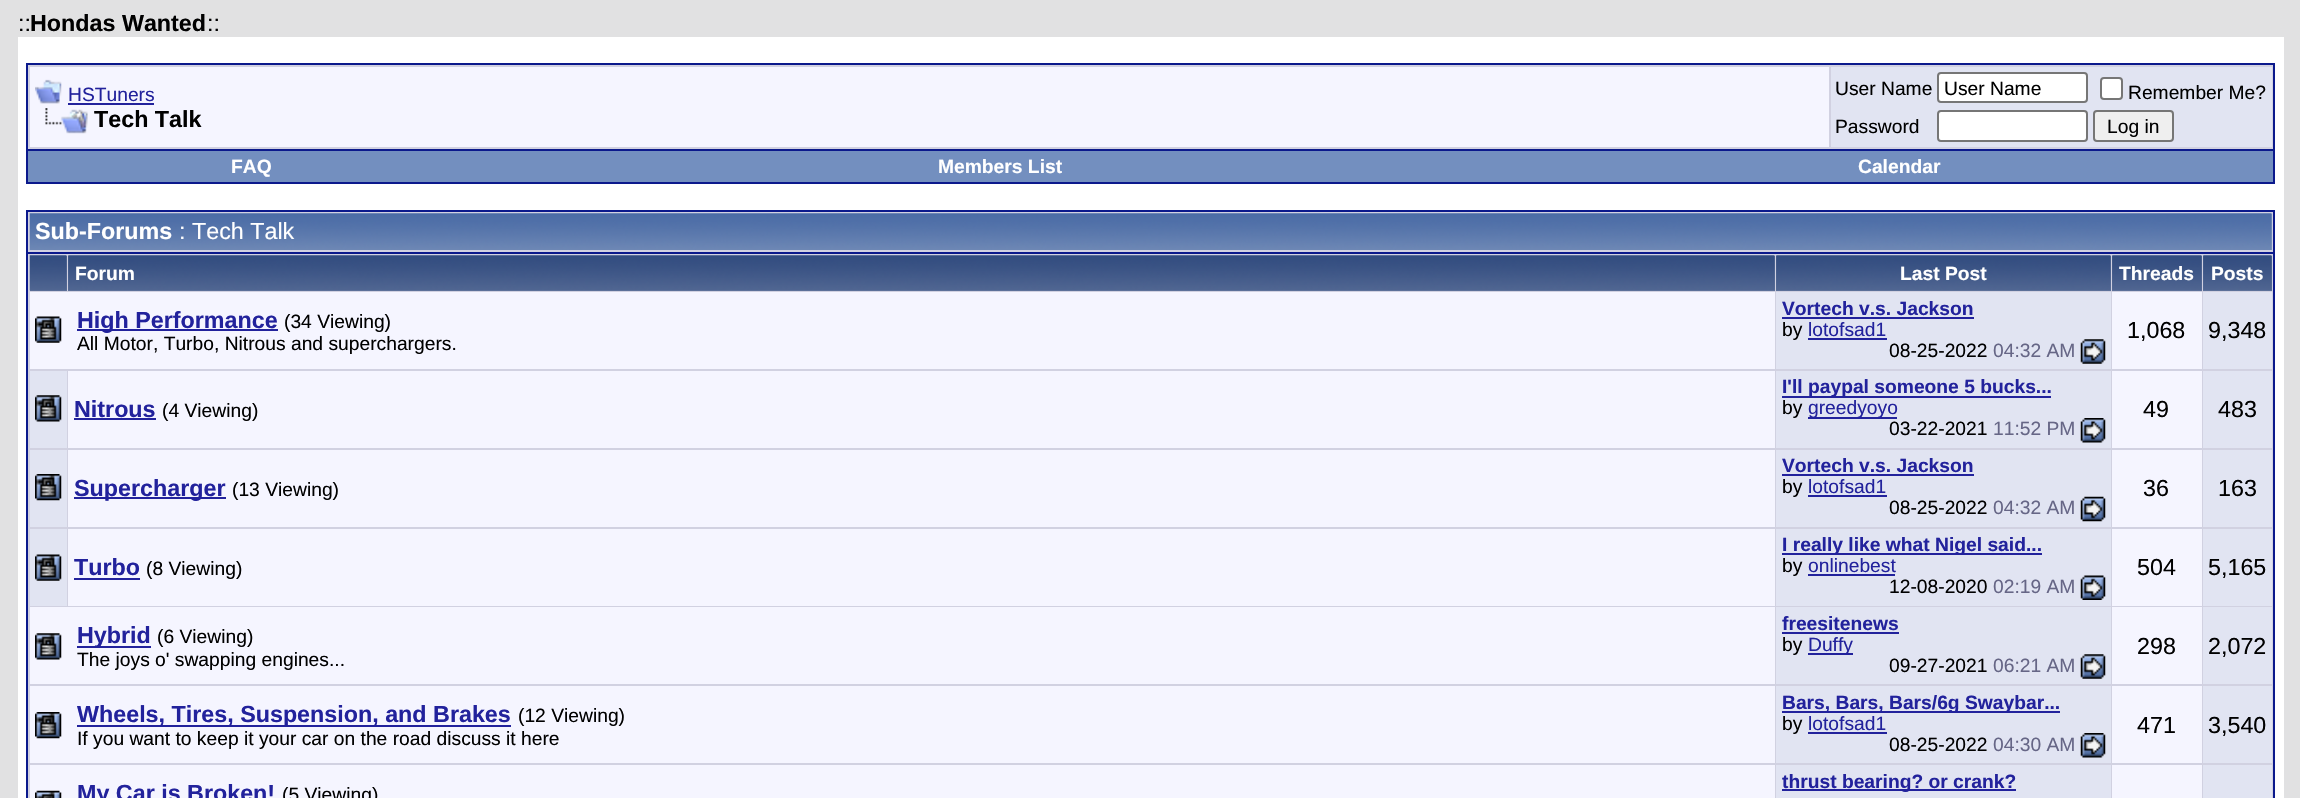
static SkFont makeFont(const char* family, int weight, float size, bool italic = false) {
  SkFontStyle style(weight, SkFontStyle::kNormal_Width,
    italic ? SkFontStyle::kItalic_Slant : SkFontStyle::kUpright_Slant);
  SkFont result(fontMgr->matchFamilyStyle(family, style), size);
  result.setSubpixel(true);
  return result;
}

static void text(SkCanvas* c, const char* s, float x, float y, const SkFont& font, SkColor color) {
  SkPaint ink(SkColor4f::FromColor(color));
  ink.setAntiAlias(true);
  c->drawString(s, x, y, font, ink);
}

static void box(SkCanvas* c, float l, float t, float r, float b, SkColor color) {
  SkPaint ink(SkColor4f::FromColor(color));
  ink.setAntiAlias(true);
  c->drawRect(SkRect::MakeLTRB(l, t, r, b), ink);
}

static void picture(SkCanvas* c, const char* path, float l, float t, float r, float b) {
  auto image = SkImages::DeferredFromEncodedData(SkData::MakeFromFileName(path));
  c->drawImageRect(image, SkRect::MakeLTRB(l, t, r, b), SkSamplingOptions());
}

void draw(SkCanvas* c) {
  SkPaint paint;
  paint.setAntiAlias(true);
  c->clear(0xffe1e1e2);
  SkFont face1 = makeFont("Liberation Sans", 400, 23.3f);
  text(c, "::", 18, 31, face1, 0xff000000);
  SkFont face2 = makeFont("Liberation Sans", 700, 23.3f);
  text(c, "Hondas Wanted", 30, 31, face2, 0xff000000);
  text(c, "::", 207, 31, face1, 0xff000000);
  box(c, 18, 37, 2284, 798, 0xffffffff);
  paint.setColor(0xffd1d1e1);
  c->drawRect(SkRect::MakeLTRB(27, 64, 2274, 150), paint);
  paint.setStyle(SkPaint::kStroke_Style);
  paint.setStrokeWidth(2);
  paint.setColor(0xff0b198c);
  c->drawRect(SkRect::MakeLTRB(27, 64, 2274, 150), paint);
  box(c, 30, 67, 1829, 147, 0xfff5f5ff);
  picture(c, "img_01.png", 35, 79, 62, 104);
  SkFont face3 = makeFont("Liberation Sans", 400, 19.25f);
  text(c, "HSTuners", 68, 101, face3, 0xff22229c);
  box(c, 68, 103, 154, 105, 0xff22229c);
  picture(c, "img_02.png", 45, 108, 88, 134);
  text(c, "Tech Talk", 94, 127, face2, 0xff000000);
  box(c, 1831, 67, 2272, 147, 0xffe1e4f2);
  text(c, "User Name", 1835, 95, face3, 0xff000000);
  paint.setStyle(SkPaint::kFill_Style);
  paint.setColor(0xffffffff);
  c->drawRoundRect(SkRect::MakeLTRB(1938, 73, 2087, 102), 3, 3, paint);
  paint.setStyle(SkPaint::kStroke_Style);
  paint.setColor(0xff767676);
  c->drawRoundRect(SkRect::MakeLTRB(1938, 73, 2087, 102), 3, 3, paint);
  text(c, "User Name", 1944, 95, face3, 0xff000000);
  paint.setStyle(SkPaint::kFill_Style);
  paint.setColor(0xffffffff);
  c->drawRoundRect(SkRect::MakeLTRB(2101, 78, 2122, 99), 3, 3, paint);
  paint.setStyle(SkPaint::kStroke_Style);
  paint.setColor(0xff767676);
  c->drawRoundRect(SkRect::MakeLTRB(2101, 78, 2122, 99), 3, 3, paint);
  text(c, "Remember Me?", 2128, 99, face3, 0xff000000);
  text(c, "Password", 1835, 133, face3, 0xff000000);
  paint.setStyle(SkPaint::kFill_Style);
  paint.setColor(0xffffffff);
  c->drawRoundRect(SkRect::MakeLTRB(1938, 111, 2087, 141), 3, 3, paint);
  paint.setStyle(SkPaint::kStroke_Style);
  paint.setColor(0xff767676);
  c->drawRoundRect(SkRect::MakeLTRB(1938, 111, 2087, 141), 3, 3, paint);
  paint.setStyle(SkPaint::kFill_Style);
  paint.setColor(0xffefefef);
  c->drawRoundRect(SkRect::MakeLTRB(2094, 111, 2173, 141), 3, 3, paint);
  paint.setStyle(SkPaint::kStroke_Style);
  paint.setColor(0xff767676);
  c->drawRoundRect(SkRect::MakeLTRB(2094, 111, 2173, 141), 3, 3, paint);
  text(c, "Log in", 2107, 133, face3, 0xff000000);
  box(c, 2273, 151, 2275, 184, 0xff0b198c);
  box(c, 26, 182, 2275, 184, 0xff0b198c);
  box(c, 26, 151, 28, 184, 0xff0b198c);
  box(c, 28, 151, 2273, 182, 0xff738fbf);
  SkFont face4 = makeFont("Liberation Sans", 700, 19.25f);
  text(c, "FAQ", 231, 173, face4, 0xffffffff);
  text(c, "Members List", 938, 173, face4, 0xffffffff);
  text(c, "Calendar", 1858, 173, face4, 0xffffffff);
  box(c, 28, 212, 2273, 252, 0xffd1d1e1);
  box(c, 26, 210, 2275, 212, 0xff0b198c);
  box(c, 2273, 210, 2275, 252, 0xff0b198c);
  box(c, 26, 210, 28, 252, 0xff0b198c);
  box(c, 2271, 214, 2272, 250, 0xff869bbf);
  picture(c, "img_03.png", 29, 213, 2272, 250);
  text(c, "Sub-Forums", 35, 239, face2, 0xffffffff);
  text(c, ": Tech Talk", 179, 239, face1, 0xffffffff);
  paint.setStyle(SkPaint::kFill_Style);
  paint.setColor(0xffd1d1e1);
  c->drawRect(SkRect::MakeLTRB(27, 253, 2274, 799), paint);
  paint.setStyle(SkPaint::kStroke_Style);
  paint.setColor(0xff0b198c);
  c->drawRect(SkRect::MakeLTRB(27, 253, 2274, 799), paint);
  box(c, 30, 256, 67, 291, 0xff5c7099);
  picture(c, "img_04.png", 29, 255, 67, 291);
  box(c, 68, 256, 1775, 291, 0xff5c7099);
  picture(c, "img_05.png", 68, 255, 1775, 290);
  text(c, "Forum", 75, 280, face4, 0xffffffff);
  box(c, 1776, 256, 2111, 291, 0xff5c7099);
  picture(c, "img_06.png", 1776, 255, 2111, 290);
  text(c, "Last Post", 1900, 280, face4, 0xffffffff);
  box(c, 2112, 256, 2202, 291, 0xff5c7099);
  picture(c, "img_07.png", 2112, 255, 2202, 290);
  text(c, "Threads", 2119, 280, face4, 0xffffffff);
  box(c, 2203, 256, 2272, 291, 0xff5c7099);
  picture(c, "img_08.png", 2203, 255, 2272, 290);
  text(c, "Posts", 2211, 280, face4, 0xffffffff);
  box(c, 30, 292, 1775, 369, 0xfff5f5ff);
  picture(c, "img_09.png", 35, 316, 62, 343);
  box(c, 77, 329, 278, 331, 0xff22229c);
  text(c, "High Performance", 77, 328, face2, 0xff22229c);
  text(c, "(34 Viewing)", 284, 328, face3, 0xff000000);
  text(c, "All Motor, Turbo, Nitrous and superchargers.", 77, 350, face3, 0xff000000);
  box(c, 1776, 292, 2111, 369, 0xffe1e4f2);
  text(c, "Vortech v.s. Jackson", 1782, 315, face4, 0xff22229c);
  box(c, 1782, 317, 1974, 319, 0xff22229c);
  text(c, "by", 1782, 336, face3, 0xff000000);
  text(c, "lotofsad1", 1808, 336, face3, 0xff22229c);
  box(c, 1808, 338, 1887, 340, 0xff22229c);
  text(c, "08-25-2022", 1889, 357, face3, 0xff000000);
  text(c, "04:32 AM", 1993, 357, face3, 0xff666686);
  picture(c, "img_10.png", 2080, 339, 2106, 364);
  box(c, 2112, 292, 2202, 369, 0xfff5f5ff);
  text(c, "1,068", 2127, 338, face1, 0xff000000);
  box(c, 2203, 292, 2272, 369, 0xffe1e4f2);
  text(c, "9,348", 2208, 338, face1, 0xff000000);
  box(c, 30, 371, 67, 448, 0xffe1e4f2);
  picture(c, "img_11.png", 35, 395, 62, 422);
  box(c, 68, 371, 1775, 448, 0xfff5f5ff);
  text(c, "Nitrous", 74, 417, face2, 0xff22229c);
  box(c, 74, 418, 156, 420, 0xff22229c);
  text(c, "(4 Viewing)", 162, 417, face3, 0xff000000);
  box(c, 1776, 371, 2111, 448, 0xffe1e4f2);
  box(c, 1782, 396, 2051, 398, 0xff22229c);
  text(c, "I'll paypal someone 5 bucks...", 1782, 393, face4, 0xff22229c);
  text(c, "by", 1782, 414, face3, 0xff000000);
  box(c, 1808, 417, 1897, 419, 0xff22229c);
  text(c, "greedyoyo", 1808, 414, face3, 0xff22229c);
  text(c, "03-22-2021", 1889, 435, face3, 0xff000000);
  text(c, "11:52 PM", 1993, 435, face3, 0xff666686);
  picture(c, "img_12.png", 2080, 418, 2106, 443);
  box(c, 2112, 371, 2202, 448, 0xfff5f5ff);
  text(c, "49", 2143, 417, face1, 0xff000000);
  box(c, 2203, 371, 2272, 448, 0xffe1e4f2);
  text(c, "483", 2218, 417, face1, 0xff000000);
  box(c, 30, 450, 67, 527, 0xffe1e4f2);
  picture(c, "img_13.png", 35, 474, 62, 501);
  box(c, 68, 450, 1775, 527, 0xfff5f5ff);
  box(c, 74, 497, 226, 499, 0xff22229c);
  text(c, "Supercharger", 74, 496, face2, 0xff22229c);
  text(c, "(13 Viewing)", 232, 496, face3, 0xff000000);
  box(c, 1776, 450, 2111, 527, 0xffe1e4f2);
  text(c, "Vortech v.s. Jackson", 1782, 472, face4, 0xff22229c);
  box(c, 1782, 474, 1974, 476, 0xff22229c);
  text(c, "by", 1782, 493, face3, 0xff000000);
  text(c, "lotofsad1", 1808, 493, face3, 0xff22229c);
  box(c, 1808, 495, 1887, 497, 0xff22229c);
  text(c, "08-25-2022", 1889, 514, face3, 0xff000000);
  text(c, "04:32 AM", 1993, 514, face3, 0xff666686);
  picture(c, "img_14.png", 2080, 496, 2106, 522);
  box(c, 2112, 450, 2202, 527, 0xfff5f5ff);
  text(c, "36", 2143, 496, face1, 0xff000000);
  box(c, 2203, 450, 2272, 527, 0xffe1e4f2);
  text(c, "163", 2218, 496, face1, 0xff000000);
  box(c, 30, 529, 67, 606, 0xffe1e4f2);
  picture(c, "img_15.png", 35, 554, 62, 581);
  box(c, 68, 529, 1775, 606, 0xfff5f5ff);
  text(c, "Turbo", 74, 575, face2, 0xff22229c);
  box(c, 74, 578, 140, 580, 0xff22229c);
  text(c, "(8 Viewing)", 146, 575, face3, 0xff000000);
  box(c, 1776, 529, 2111, 606, 0xffe1e4f2);
  box(c, 1782, 553, 2042, 555, 0xff22229c);
  text(c, "I really like what Nigel said...", 1782, 551, face4, 0xff22229c);
  text(c, "by", 1782, 572, face3, 0xff000000);
  text(c, "onlinebest", 1808, 572, face3, 0xff22229c);
  box(c, 1808, 574, 1895, 576, 0xff22229c);
  text(c, "12-08-2020", 1889, 593, face3, 0xff000000);
  text(c, "02:19 AM", 1993, 593, face3, 0xff666686);
  picture(c, "img_16.png", 2080, 575, 2106, 600);
  box(c, 2112, 529, 2202, 606, 0xfff5f5ff);
  text(c, "504", 2137, 575, face1, 0xff000000);
  box(c, 2203, 529, 2272, 606, 0xffe1e4f2);
  text(c, "5,165", 2208, 575, face1, 0xff000000);
  box(c, 30, 607, 1775, 684, 0xfff5f5ff);
  picture(c, "img_17.png", 35, 633, 62, 660);
  box(c, 77, 646, 151, 648, 0xff22229c);
  text(c, "Hybrid", 77, 643, face2, 0xff22229c);
  text(c, "(6 Viewing)", 157, 643, face3, 0xff000000);
  text(c, "The joys o' swapping engines...", 77, 666, face3, 0xff000000);
  box(c, 1776, 607, 2111, 684, 0xffe1e4f2);
  text(c, "freesitenews", 1782, 630, face4, 0xff22229c);
  box(c, 1782, 632, 1899, 634, 0xff22229c);
  text(c, "by", 1782, 651, face3, 0xff000000);
  box(c, 1808, 653, 1853, 655, 0xff22229c);
  text(c, "Duffy", 1808, 651, face3, 0xff22229c);
  text(c, "09-27-2021", 1889, 672, face3, 0xff000000);
  text(c, "06:21 AM", 1993, 672, face3, 0xff666686);
  picture(c, "img_10.png", 2080, 654, 2106, 679);
  box(c, 2112, 607, 2202, 684, 0xfff5f5ff);
  text(c, "298", 2137, 654, face1, 0xff000000);
  box(c, 2203, 607, 2272, 684, 0xffe1e4f2);
  text(c, "2,072", 2208, 654, face1, 0xff000000);
  box(c, 30, 686, 1775, 763, 0xfff5f5ff);
  picture(c, "img_18.png", 35, 712, 62, 739);
  box(c, 77, 725, 511, 727, 0xff22229c);
  text(c, "Wheels, Tires, Suspension, and Brakes", 77, 722, face2, 0xff22229c);
  text(c, "(12 Viewing)", 518, 722, face3, 0xff000000);
  text(c, "If you want to keep it your car on the road discuss it here", 77, 745, face3, 0xff000000);
  box(c, 1776, 686, 2111, 763, 0xffe1e4f2);
  box(c, 1782, 711, 2060, 713, 0xff22229c);
  text(c, "Bars, Bars, Bars/6g Swaybar...", 1782, 709, face4, 0xff22229c);
  text(c, "by", 1782, 730, face3, 0xff000000);
  text(c, "lotofsad1", 1808, 730, face3, 0xff22229c);
  box(c, 1808, 732, 1887, 734, 0xff22229c);
  text(c, "08-25-2022", 1889, 751, face3, 0xff000000);
  text(c, "04:30 AM", 1993, 751, face3, 0xff666686);
  picture(c, "img_12.png", 2080, 733, 2106, 758);
  box(c, 2112, 686, 2202, 763, 0xfff5f5ff);
  text(c, "471", 2137, 733, face1, 0xff000000);
  box(c, 2203, 686, 2272, 763, 0xffe1e4f2);
  text(c, "3,540", 2208, 733, face1, 0xff000000);
  box(c, 30, 765, 1775, 798, 0xfff5f5ff);
  picture(c, "img_19.png", 35, 790, 62, 798);
  text(c, "My Car is Broken!", 77, 801, face2, 0xff22229c);
  text(c, "(5 Viewing)", 282, 801, face3, 0xff000000);
  box(c, 1776, 765, 2111, 798, 0xffe1e4f2);
  box(c, 1782, 789, 2016, 791, 0xff22229c);
  text(c, "thrust bearing? or crank?", 1782, 788, face4, 0xff22229c);
  box(c, 2112, 765, 2202, 798, 0xfff5f5ff);
  box(c, 2203, 765, 2272, 798, 0xffe1e4f2);
}
